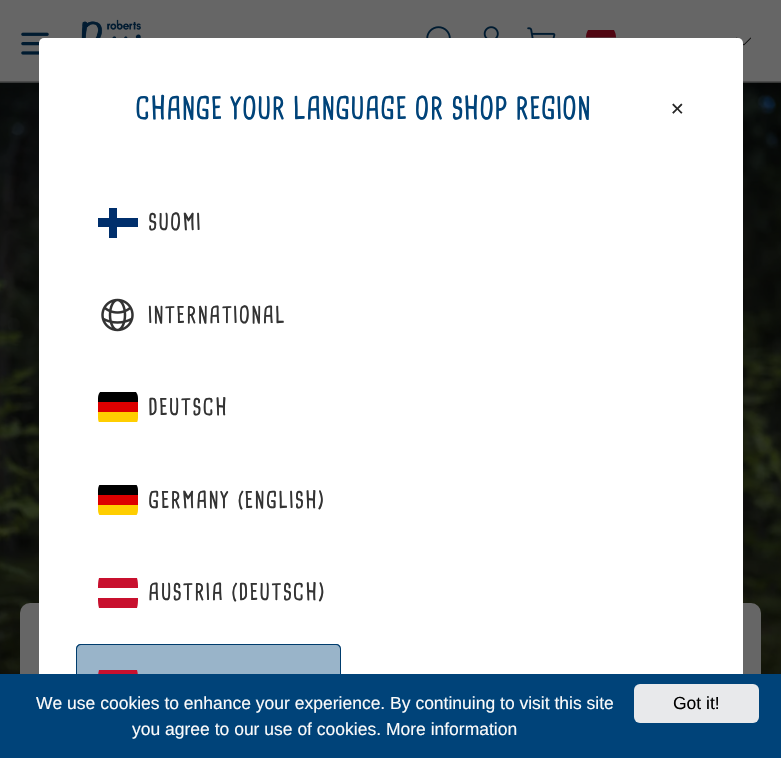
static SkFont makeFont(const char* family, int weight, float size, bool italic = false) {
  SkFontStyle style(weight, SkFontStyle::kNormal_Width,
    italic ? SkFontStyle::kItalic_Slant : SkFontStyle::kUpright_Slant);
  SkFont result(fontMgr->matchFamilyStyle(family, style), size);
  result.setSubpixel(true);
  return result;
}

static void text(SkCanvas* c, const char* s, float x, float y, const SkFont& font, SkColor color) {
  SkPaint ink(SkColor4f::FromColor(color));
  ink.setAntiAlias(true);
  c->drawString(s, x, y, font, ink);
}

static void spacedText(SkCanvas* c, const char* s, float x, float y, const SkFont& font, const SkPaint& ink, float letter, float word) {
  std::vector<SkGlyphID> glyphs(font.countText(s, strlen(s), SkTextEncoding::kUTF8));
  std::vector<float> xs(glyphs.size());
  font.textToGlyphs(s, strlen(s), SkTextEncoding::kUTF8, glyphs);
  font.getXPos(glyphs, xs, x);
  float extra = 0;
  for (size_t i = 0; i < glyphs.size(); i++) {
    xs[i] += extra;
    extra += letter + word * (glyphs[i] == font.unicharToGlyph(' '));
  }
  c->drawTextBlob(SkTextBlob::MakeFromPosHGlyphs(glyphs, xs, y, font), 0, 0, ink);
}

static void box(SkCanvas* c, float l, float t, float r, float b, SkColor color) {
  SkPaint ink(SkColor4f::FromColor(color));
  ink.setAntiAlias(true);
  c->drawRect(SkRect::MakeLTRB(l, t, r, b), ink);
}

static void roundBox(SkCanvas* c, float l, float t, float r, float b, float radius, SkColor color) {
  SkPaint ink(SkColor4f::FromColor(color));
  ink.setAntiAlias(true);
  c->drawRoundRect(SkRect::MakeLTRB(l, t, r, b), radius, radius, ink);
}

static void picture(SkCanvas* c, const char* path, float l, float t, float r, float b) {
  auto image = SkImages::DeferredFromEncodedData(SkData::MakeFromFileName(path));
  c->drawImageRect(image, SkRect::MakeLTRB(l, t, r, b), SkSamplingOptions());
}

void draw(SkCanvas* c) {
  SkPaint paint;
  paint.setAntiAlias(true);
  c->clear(0xff666666);
  box(c, 0, 81, 781, 82, 0xff4c4c4c);
  picture(c, "img_01.png", 21, 32, 49, 55);
  picture(c, "img_02.png", 81, 19, 141, 38);
  picture(c, "img_03.png", 426, 26, 451, 38);
  picture(c, "img_04.png", 483, 26, 499, 38);
  picture(c, "img_05.png", 527, 27, 556, 38);
  paint.setColor(0xff500612);
  c->drawPath(SkPathBuilder(SkPathFillType::kEvenOdd).moveTo(616, 37.5f).cubicTo(616, 35, 615.5f, 32.5f, 614, 30).lineTo(588, 30).cubicTo(586.5f, 32.5f, 586, 35, 586, 37.5f).close().moveTo(616, 45).lineTo(586, 45).cubicTo(586, 48, 586.5f, 50.5f, 588.5f, 52.5f).lineTo(613.5f, 52.5f).cubicTo(615.5f, 50.5f, 616, 48, 616, 45).close().detach(), paint);
  picture(c, "img_06.png", 736, 37, 751, 46);
  picture(c, "img_07.png", 0, 82, 781, 674);
  paint.setColor(0x1f000000);
  paint.setMaskFilter(SkMaskFilter::MakeBlur(kNormal_SkBlurStyle, 9.5f));
  c->drawRoundRect(SkRect::MakeLTRB(20, 603, 761, 714), 10, 10, paint);
  paint.setMaskFilter(nullptr);
  roundBox(c, 20, 603, 761, 714, 10, 0xff666666);
  roundBox(c, 39, 38, 743, 721, 5, 0xffffffff);
  SkFont face1 = makeFont("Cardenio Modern", 700, 30);
  text(c, "CHANGE YOUR LANGUAGE OR SHOP REGION", 135, 119, face1, 0xff004379);
  SkFont face2 = makeFont("DejaVu Sans", 400, 17.5f);
  text(c, "✕", 670, 115, face2, 0xff282828);
  box(c, 98, 218, 138, 227, 0xff002f6c);
  box(c, 109, 208, 117, 238, 0xff002f6c);
  SkFont face3 = makeFont("Cardenio Modern", 700, 22.5f);
  paint.setColor(0xff333333);
  spacedText(c, "SUOMI", 148, 230, face3, paint, 1.1f, 0);
  picture(c, "img_08.png", 101, 298, 134, 332);
  spacedText(c, "INTERNATIONAL", 148, 323, face3, paint, 1.1f, 0);
  c->save();
  c->clipPath(SkPathBuilder().moveTo(108, 388).lineTo(128, 388).cubicTo(133.5f, 388, 138, 392.5f, 138, 398).lineTo(138, 418).cubicTo(138, 423.5f, 133.5f, 428, 128, 428).lineTo(108, 428).cubicTo(102.5f, 428, 98, 423.5f, 98, 418).lineTo(98, 398).cubicTo(98, 392.5f, 102.5f, 388, 108, 388).close().detach(), true);
  box(c, 98, 412, 138, 422, 0xffffce00);
  box(c, 98, 392, 138, 402, 0xff000000);
  c->restore();
  box(c, 98, 402, 138, 412, 0xffdd0000);
  spacedText(c, "DEUTSCH", 148, 415, face3, paint, 1.1f, 0);
  c->save();
  c->clipPath(SkPathBuilder().moveTo(108, 480).lineTo(128, 480).cubicTo(133.5f, 480, 138, 484.5f, 138, 490).lineTo(138, 510).cubicTo(138, 515.5f, 133.5f, 520, 128, 520).lineTo(108, 520).cubicTo(102.5f, 520, 98, 515.5f, 98, 510).lineTo(98, 490).cubicTo(98, 484.5f, 102.5f, 480, 108, 480).close().detach(), true);
  box(c, 98, 505, 138, 515, 0xffffce00);
  box(c, 98, 485, 138, 495, 0xff000000);
  c->restore();
  box(c, 98, 495, 138, 505, 0xffdd0000);
  spacedText(c, "GERMANY (ENGLISH)", 148, 508, face3, paint, 1.1f, 0);
  paint.setColor(0xffc8102e);
  c->drawPath(SkPathBuilder(SkPathFillType::kEvenOdd).moveTo(138, 588).cubicTo(138, 585, 138, 581, 137, 578).lineTo(99, 578).cubicTo(98, 581, 98, 585, 98, 588).close().moveTo(138, 598).lineTo(98, 598).cubicTo(98, 601, 98, 605, 99, 608).lineTo(137, 608).cubicTo(138, 605, 138, 601, 138, 598).close().detach(), paint);
  paint.setColor(0xff333333);
  spacedText(c, "AUSTRIA (DEUTSCH)", 148, 600, face3, paint, 1.1f, 0);
  paint.setColor(0xff99b4c9);
  c->drawPath(SkPathBuilder().moveTo(81, 644).lineTo(336, 644).cubicTo(339, 644, 341, 646, 341, 649).lineTo(341, 721).lineTo(76, 721).lineTo(76, 649).cubicTo(76, 646, 78, 644, 81, 644).close().detach(), paint);
  paint.setColor(0xff003c6d);
  c->drawPath(SkPathBuilder().moveTo(81, 644).cubicTo(78, 644, 76, 646, 76, 649).lineTo(76, 721).lineTo(77, 721).lineTo(77, 649).cubicTo(77, 647, 79, 645, 81, 645).lineTo(336, 645).cubicTo(338, 645, 340, 647, 340, 649).lineTo(340, 721).lineTo(341, 721).lineTo(341, 649).cubicTo(341, 646, 339, 644, 336, 644).close().detach(), paint);
  paint.setColor(0xffc8102e);
  c->drawPath(SkPathBuilder(SkPathFillType::kEvenOdd).moveTo(138, 680).cubicTo(138, 677, 138, 673, 137, 670).lineTo(99, 670).cubicTo(98, 673, 98, 677, 98, 680).close().moveTo(138, 690).lineTo(98, 690).cubicTo(98, 693, 98, 697, 99, 700).lineTo(137, 700).cubicTo(138, 697, 138, 693, 138, 690).close().detach(), paint);
  box(c, 0, 674, 781, 758, 0xff004379);
  SkFont face4 = makeFont("Liberation Sans", 400, 17.5f);
  text(c, "We use cookies to enhance your experience. By continuing to visit this site", 36, 709, face4, 0xfffafafa);
  text(c, "you agree to our use of cookies. More information", 132, 735, face4, 0xfffafafa);
  roundBox(c, 634, 684, 759, 723, 6, 0xffe8e9eb);
  text(c, "Got it!", 673, 709, face4, 0xff000000);
}
